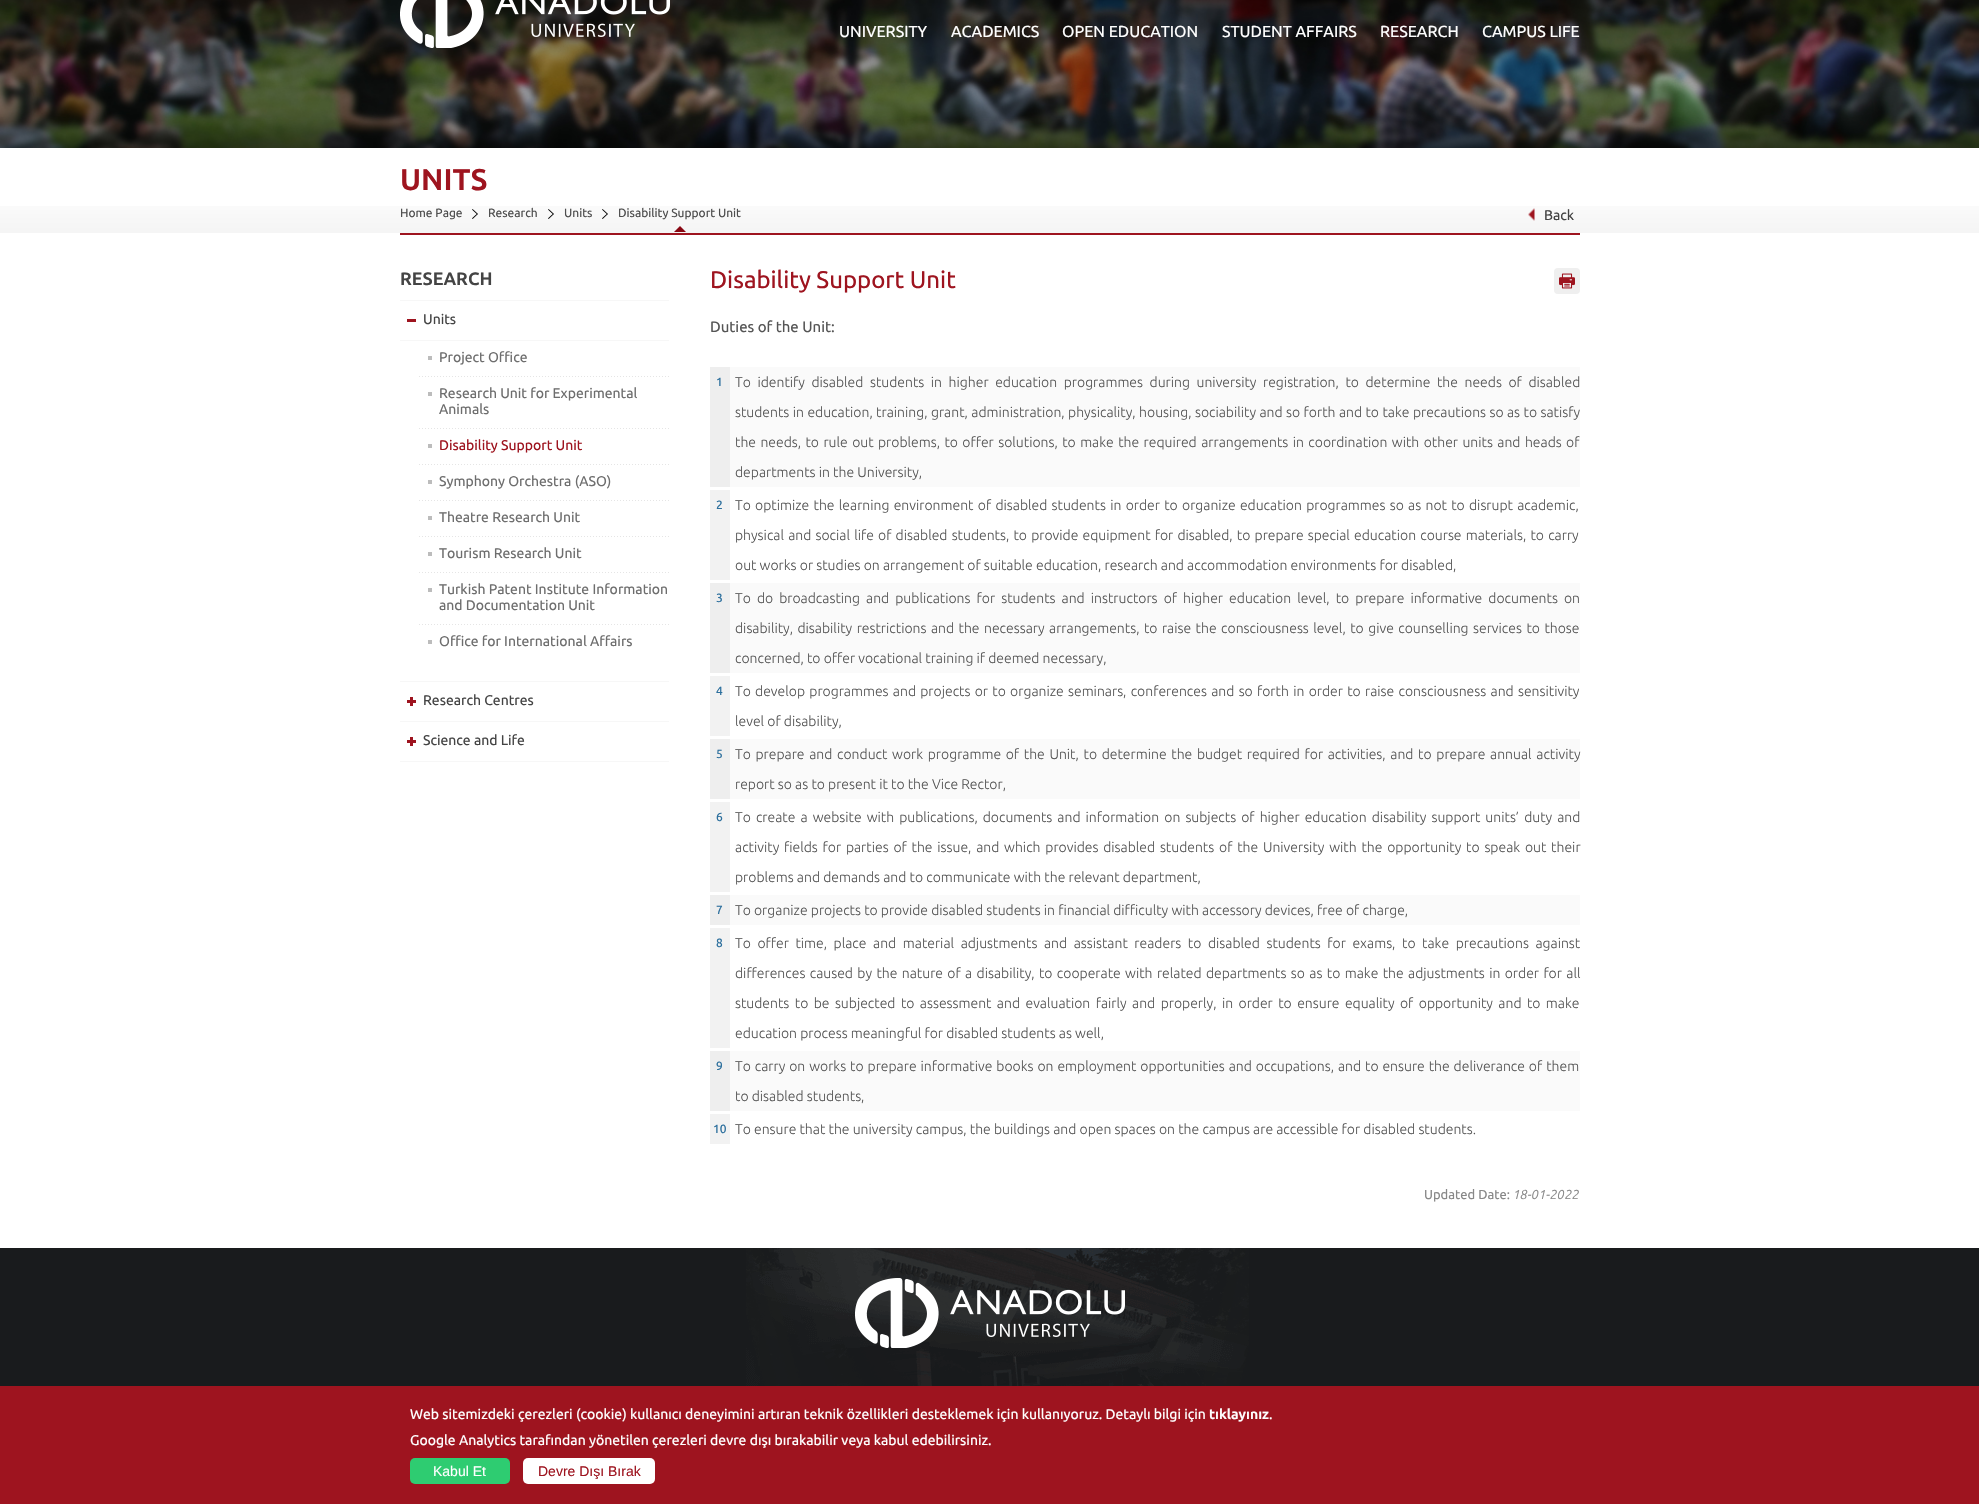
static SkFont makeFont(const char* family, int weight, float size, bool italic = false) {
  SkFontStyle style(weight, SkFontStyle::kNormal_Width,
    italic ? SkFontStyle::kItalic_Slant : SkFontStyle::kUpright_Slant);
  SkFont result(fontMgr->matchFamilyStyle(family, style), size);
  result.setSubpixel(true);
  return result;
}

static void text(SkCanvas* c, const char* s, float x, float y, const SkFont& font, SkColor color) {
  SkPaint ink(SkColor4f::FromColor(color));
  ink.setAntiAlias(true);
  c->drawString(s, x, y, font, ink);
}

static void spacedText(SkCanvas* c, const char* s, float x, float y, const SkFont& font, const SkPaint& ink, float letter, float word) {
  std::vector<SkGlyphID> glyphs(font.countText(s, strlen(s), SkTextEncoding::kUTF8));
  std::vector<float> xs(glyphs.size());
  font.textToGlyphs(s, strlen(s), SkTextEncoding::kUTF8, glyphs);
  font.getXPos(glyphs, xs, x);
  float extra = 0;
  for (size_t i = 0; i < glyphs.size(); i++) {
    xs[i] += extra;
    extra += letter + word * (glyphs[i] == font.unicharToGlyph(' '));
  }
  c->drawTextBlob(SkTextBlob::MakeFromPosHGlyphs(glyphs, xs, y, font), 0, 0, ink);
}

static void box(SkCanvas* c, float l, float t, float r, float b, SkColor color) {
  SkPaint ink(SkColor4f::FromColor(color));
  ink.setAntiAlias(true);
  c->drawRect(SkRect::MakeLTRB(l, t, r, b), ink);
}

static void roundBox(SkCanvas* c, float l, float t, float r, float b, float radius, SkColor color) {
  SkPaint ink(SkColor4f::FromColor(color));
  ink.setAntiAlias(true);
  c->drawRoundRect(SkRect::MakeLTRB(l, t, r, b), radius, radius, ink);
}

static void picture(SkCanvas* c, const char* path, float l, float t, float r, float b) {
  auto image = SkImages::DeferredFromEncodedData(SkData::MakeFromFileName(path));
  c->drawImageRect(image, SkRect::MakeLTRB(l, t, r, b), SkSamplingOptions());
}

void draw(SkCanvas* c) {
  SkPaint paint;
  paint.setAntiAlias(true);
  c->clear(0xffffffff);
  picture(c, "img_02.png", 0, 0, 1979, 148);
  picture(c, "img_01.png", 400, 0, 670, 48);
  SkFont face1 = makeFont("Ubuntu", 400, 16);
  text(c, "UNIVERSITY", 839, 37, face1, 0xffffffff);
  text(c, "ACADEMICS", 951, 37, face1, 0xffffffff);
  text(c, "OPEN EDUCATION", 1062, 37, face1, 0xffffffff);
  text(c, "STUDENT AFFAIRS", 1222, 37, face1, 0xffffffff);
  text(c, "RESEARCH", 1380, 37, face1, 0xffffffff);
  text(c, "CAMPUS LIFE", 1482, 37, face1, 0xffffffff);
  picture(c, "img_03.png", 0, 206, 1979, 233);
  box(c, 400, 233, 1580, 235, 0xff9e141f);
  SkFont face2 = makeFont("Ubuntu", 700, 30);
  text(c, "UNITS", 400, 190, face2, 0xff9e141f);
  picture(c, "img_04.png", 472, 209, 478, 219);
  SkFont face3 = makeFont("Ubuntu", 400, 12);
  text(c, "Home Page", 400, 217, face3, 0xff4e4e4e);
  picture(c, "img_04.png", 548, 209, 554, 219);
  text(c, "Research", 488, 217, face3, 0xff4e4e4e);
  picture(c, "img_04.png", 602, 209, 608, 219);
  text(c, "Units", 564, 217, face3, 0xff4e4e4e);
  picture(c, "img_05.png", 674, 226, 686, 232);
  text(c, "Disability Support Unit", 618, 217, face3, 0xff4e4e4e);
  picture(c, "img_06.png", 1528, 208, 1535, 221);
  SkFont face4 = makeFont("Ubuntu", 400, 14);
  text(c, "Back", 1544, 220, face4, 0xff444444);
  box(c, 400, 300, 669, 301, 0xfff7f7f7);
  SkFont face5 = makeFont("Ubuntu", 700, 18);
  text(c, "RESEARCH", 400, 285, face5, 0xff444444);
  box(c, 400, 681, 669, 682, 0xfff7f7f7);
  box(c, 407, 319, 416, 322, 0xff9e141f);
  text(c, "Units", 423, 324, face4, 0xff444444);
  box(c, 400, 340, 669, 341, 0xfff7f7f7);
  picture(c, "img_07.png", 419, 376, 669, 377);
  box(c, 428, 356, 432, 360, 0xffbcbcbc);
  text(c, "Project Office", 439, 362, face4, 0xff6e6e6e);
  picture(c, "img_07.png", 419, 428, 669, 429);
  box(c, 428, 392, 432, 396, 0xffbcbcbc);
  text(c, "Research Unit for Experimental", 439, 398, face4, 0xff6e6e6e);
  text(c, "Animals", 439, 414, face4, 0xff6e6e6e);
  picture(c, "img_07.png", 419, 464, 669, 465);
  box(c, 428, 444, 432, 448, 0xffbcbcbc);
  text(c, "Disability Support Unit", 439, 450, face4, 0xff9e141f);
  picture(c, "img_07.png", 419, 500, 669, 501);
  box(c, 428, 480, 432, 484, 0xffbcbcbc);
  text(c, "Symphony Orchestra (ASO)", 439, 486, face4, 0xff6e6e6e);
  picture(c, "img_07.png", 419, 536, 669, 537);
  box(c, 428, 516, 432, 520, 0xffbcbcbc);
  text(c, "Theatre Research Unit", 439, 522, face4, 0xff6e6e6e);
  picture(c, "img_07.png", 419, 572, 669, 573);
  box(c, 428, 552, 432, 556, 0xffbcbcbc);
  text(c, "Tourism Research Unit", 439, 558, face4, 0xff6e6e6e);
  picture(c, "img_07.png", 419, 624, 669, 625);
  box(c, 428, 588, 432, 592, 0xffbcbcbc);
  text(c, "Turkish Patent Institute Information", 439, 594, face4, 0xff6e6e6e);
  text(c, "and Documentation Unit", 439, 610, face4, 0xff6e6e6e);
  box(c, 428, 640, 432, 644, 0xffbcbcbc);
  text(c, "Office for International Affairs", 439, 646, face4, 0xff6e6e6e);
  box(c, 400, 721, 669, 722, 0xfff7f7f7);
  picture(c, "img_08.png", 407, 697, 416, 706);
  text(c, "Research Centres", 423, 705, face4, 0xff444444);
  box(c, 400, 761, 669, 762, 0xfff7f7f7);
  picture(c, "img_08.png", 407, 737, 416, 746);
  text(c, "Science and Life", 423, 745, face4, 0xff444444);
  roundBox(c, 1554, 268, 1580, 294, 4, 0xffefefef);
  picture(c, "img_09.png", 1559, 273, 1575, 289);
  SkFont face6 = makeFont("Ubuntu", 400, 24);
  text(c, "Disability Support Unit", 710, 288, face6, 0xff9e141f);
  SkFont face7 = makeFont("Ubuntu", 400, 15);
  text(c, "Duties of the Unit:", 710, 332, face7, 0xff555555);
  box(c, 730, 367, 1580, 487, 0xfffafafa);
  box(c, 710, 367, 730, 487, 0xffeeeeee);
  SkFont face8 = makeFont("Ubuntu", 500, 12);
  text(c, "1", 716, 386, face8, 0xff2c6f9d);
  SkFont face9 = makeFont("Ubuntu", 300, 14);
  paint.setColor(0xff555555);
  spacedText(c, "To identify disabled students in higher education programmes during university registration, to determine the needs of disabled", 735, 387, face9, paint, 0, 3.4f);
  spacedText(c, "students in education, training, grant, administration, physicality, housing, sociability and so forth and to take precautions so as to satisfy", 735, 417, face9, paint, 0, 0.25f);
  spacedText(c, "the needs, to rule out problems, to offer solutions, to make the required arrangements in coordination with other units and heads of", 735, 447, face9, paint, 0, 1.25f);
  text(c, "departments in the University,", 735, 477, face9, 0xff555555);
  box(c, 710, 490, 730, 580, 0xfff2f2f2);
  text(c, "2", 716, 509, face8, 0xff2c6f9d);
  spacedText(c, "To optimize the learning environment of disabled students in order to organize education programmes so as not to disrupt academic,", 735, 510, face9, paint, 0, 1.1f);
  spacedText(c, "physical and social life of disabled students, to provide equipment for disabled, to prepare special education course materials, to carry", 735, 540, face9, paint, 0, 1);
  text(c, "out works or studies on arrangement of suitable education, research and accommodation environments for disabled,", 735, 570, face9, 0xff555555);
  box(c, 730, 583, 1580, 673, 0xfffafafa);
  box(c, 710, 583, 730, 673, 0xffeeeeee);
  text(c, "3", 716, 602, face8, 0xff2c6f9d);
  spacedText(c, "To do broadcasting and publications for students and instructors of higher education level, to prepare informative documents on", 735, 603, face9, paint, 0, 2.9f);
  spacedText(c, "disability, disability restrictions and the necessary arrangements, to raise the consciousness level, to give counselling services to those", 735, 633, face9, paint, 0, 1.3f);
  text(c, "concerned, to offer vocational training if deemed necessary,", 735, 663, face9, 0xff555555);
  box(c, 710, 676, 730, 736, 0xfff2f2f2);
  text(c, "4", 716, 695, face8, 0xff2c6f9d);
  spacedText(c, "To develop programmes and projects or to organize seminars, conferences and so forth in order to raise consciousness and sensitivity", 735, 696, face9, paint, 0, 1.1f);
  text(c, "level of disability,", 735, 726, face9, 0xff555555);
  box(c, 730, 739, 1580, 799, 0xfffafafa);
  box(c, 710, 739, 730, 799, 0xffeeeeee);
  text(c, "5", 716, 758, face8, 0xff2c6f9d);
  spacedText(c, "To prepare and conduct work programme of the Unit, to determine the budget required for activities, and to prepare annual activity", 735, 759, face9, paint, 0, 1.5f);
  text(c, "report so as to present it to the Vice Rector,", 735, 789, face9, 0xff555555);
  box(c, 710, 802, 730, 892, 0xfff2f2f2);
  text(c, "6", 716, 821, face8, 0xff2c6f9d);
  spacedText(c, "To create a website with publications, documents and information on subjects of higher education disability support units’ duty and", 735, 822, face9, paint, 0, 1.9f);
  spacedText(c, "activity fields for parties of the issue, and which provides disabled students of the University with the opportunity to speak out their", 735, 852, face9, paint, 0, 1.6f);
  text(c, "problems and demands and to communicate with the relevant department,", 735, 882, face9, 0xff555555);
  box(c, 730, 895, 1580, 925, 0xfffafafa);
  box(c, 710, 895, 730, 925, 0xffeeeeee);
  text(c, "7", 716, 914, face8, 0xff2c6f9d);
  text(c, "To organize projects to provide disabled students in financial difficulty with accessory devices, free of charge,", 735, 915, face9, 0xff555555);
  box(c, 710, 928, 730, 1048, 0xfff2f2f2);
  text(c, "8", 716, 947, face8, 0xff2c6f9d);
  spacedText(c, "To offer time, place and material adjustments and assistant readers to disabled students for exams, to take precautions against", 735, 948, face9, paint, 0, 3.4f);
  spacedText(c, "differences caused by the nature of a disability, to cooperate with related departments so as to make the adjustments in order for all", 735, 978, face9, paint, 0, 1.2f);
  spacedText(c, "students to be subjected to assessment and evaluation fairly and properly, in order to ensure equality of opportunity and to make", 735, 1008, face9, paint, 0, 2.25f);
  text(c, "education process meaningful for disabled students as well,", 735, 1038, face9, 0xff555555);
  box(c, 730, 1051, 1580, 1111, 0xfffafafa);
  box(c, 710, 1051, 730, 1111, 0xffeeeeee);
  text(c, "9", 716, 1070, face8, 0xff2c6f9d);
  spacedText(c, "To carry on works to prepare informative books on employment opportunities and occupations, and to ensure the deliverance of them", 735, 1071, face9, paint, 0, 0.75f);
  text(c, "to disabled students,", 735, 1101, face9, 0xff555555);
  box(c, 710, 1114, 730, 1144, 0xfff2f2f2);
  text(c, "10", 713, 1133, face8, 0xff2c6f9d);
  text(c, "To ensure that the university campus, the buildings and open spaces on the campus are accessible for disabled students.", 735, 1134, face9, 0xff555555);
  SkFont face10 = makeFont("Ubuntu", 400, 13);
  text(c, "Updated Date:", 1424, 1199, face10, 0xff888888);
  SkFont face11 = makeFont("Ubuntu", 400, 13, true);
  text(c, "18-01-2022", 1513, 1199, face11, 0xff888888);
  box(c, 0, 1248, 1979, 1386, 0xff191b1d);
  picture(c, "img_10.png", 746, 1248, 1249, 1386);
  picture(c, "img_11.png", 855, 1278, 1125, 1348);
  box(c, 0, 1386, 1979, 1504, 0xff9e141f);
  text(c, "Web sitemizdeki çerezleri (cookie) kullanıcı deneyimini artıran teknik özellikleri desteklemek için kullanıyoruz. Detaylı bilgi için", 410, 1419, face4, 0xffffffff);
  SkFont face12 = makeFont("Ubuntu", 700, 14);
  text(c, "tıklayınız", 1209, 1419, face12, 0xffffffff);
  text(c, ".", 1269, 1419, face4, 0xffffffff);
  text(c, "Google Analytics tarafından yönetilen çerezleri devre dışı bırakabilir veya kabul edebilirsiniz.", 410, 1445, face4, 0xffffffff);
  roundBox(c, 410, 1458, 510, 1484, 5, 0xff2ecc71);
  SkFont face13 = makeFont("Liberation Sans", 400, 14);
  text(c, "Kabul Et", 433, 1476, face13, 0xffffffff);
  roundBox(c, 523, 1458, 655, 1484, 5, 0xffffffff);
  text(c, "Devre Dışı Bırak", 538, 1476, face13, 0xff9e141f);
}
